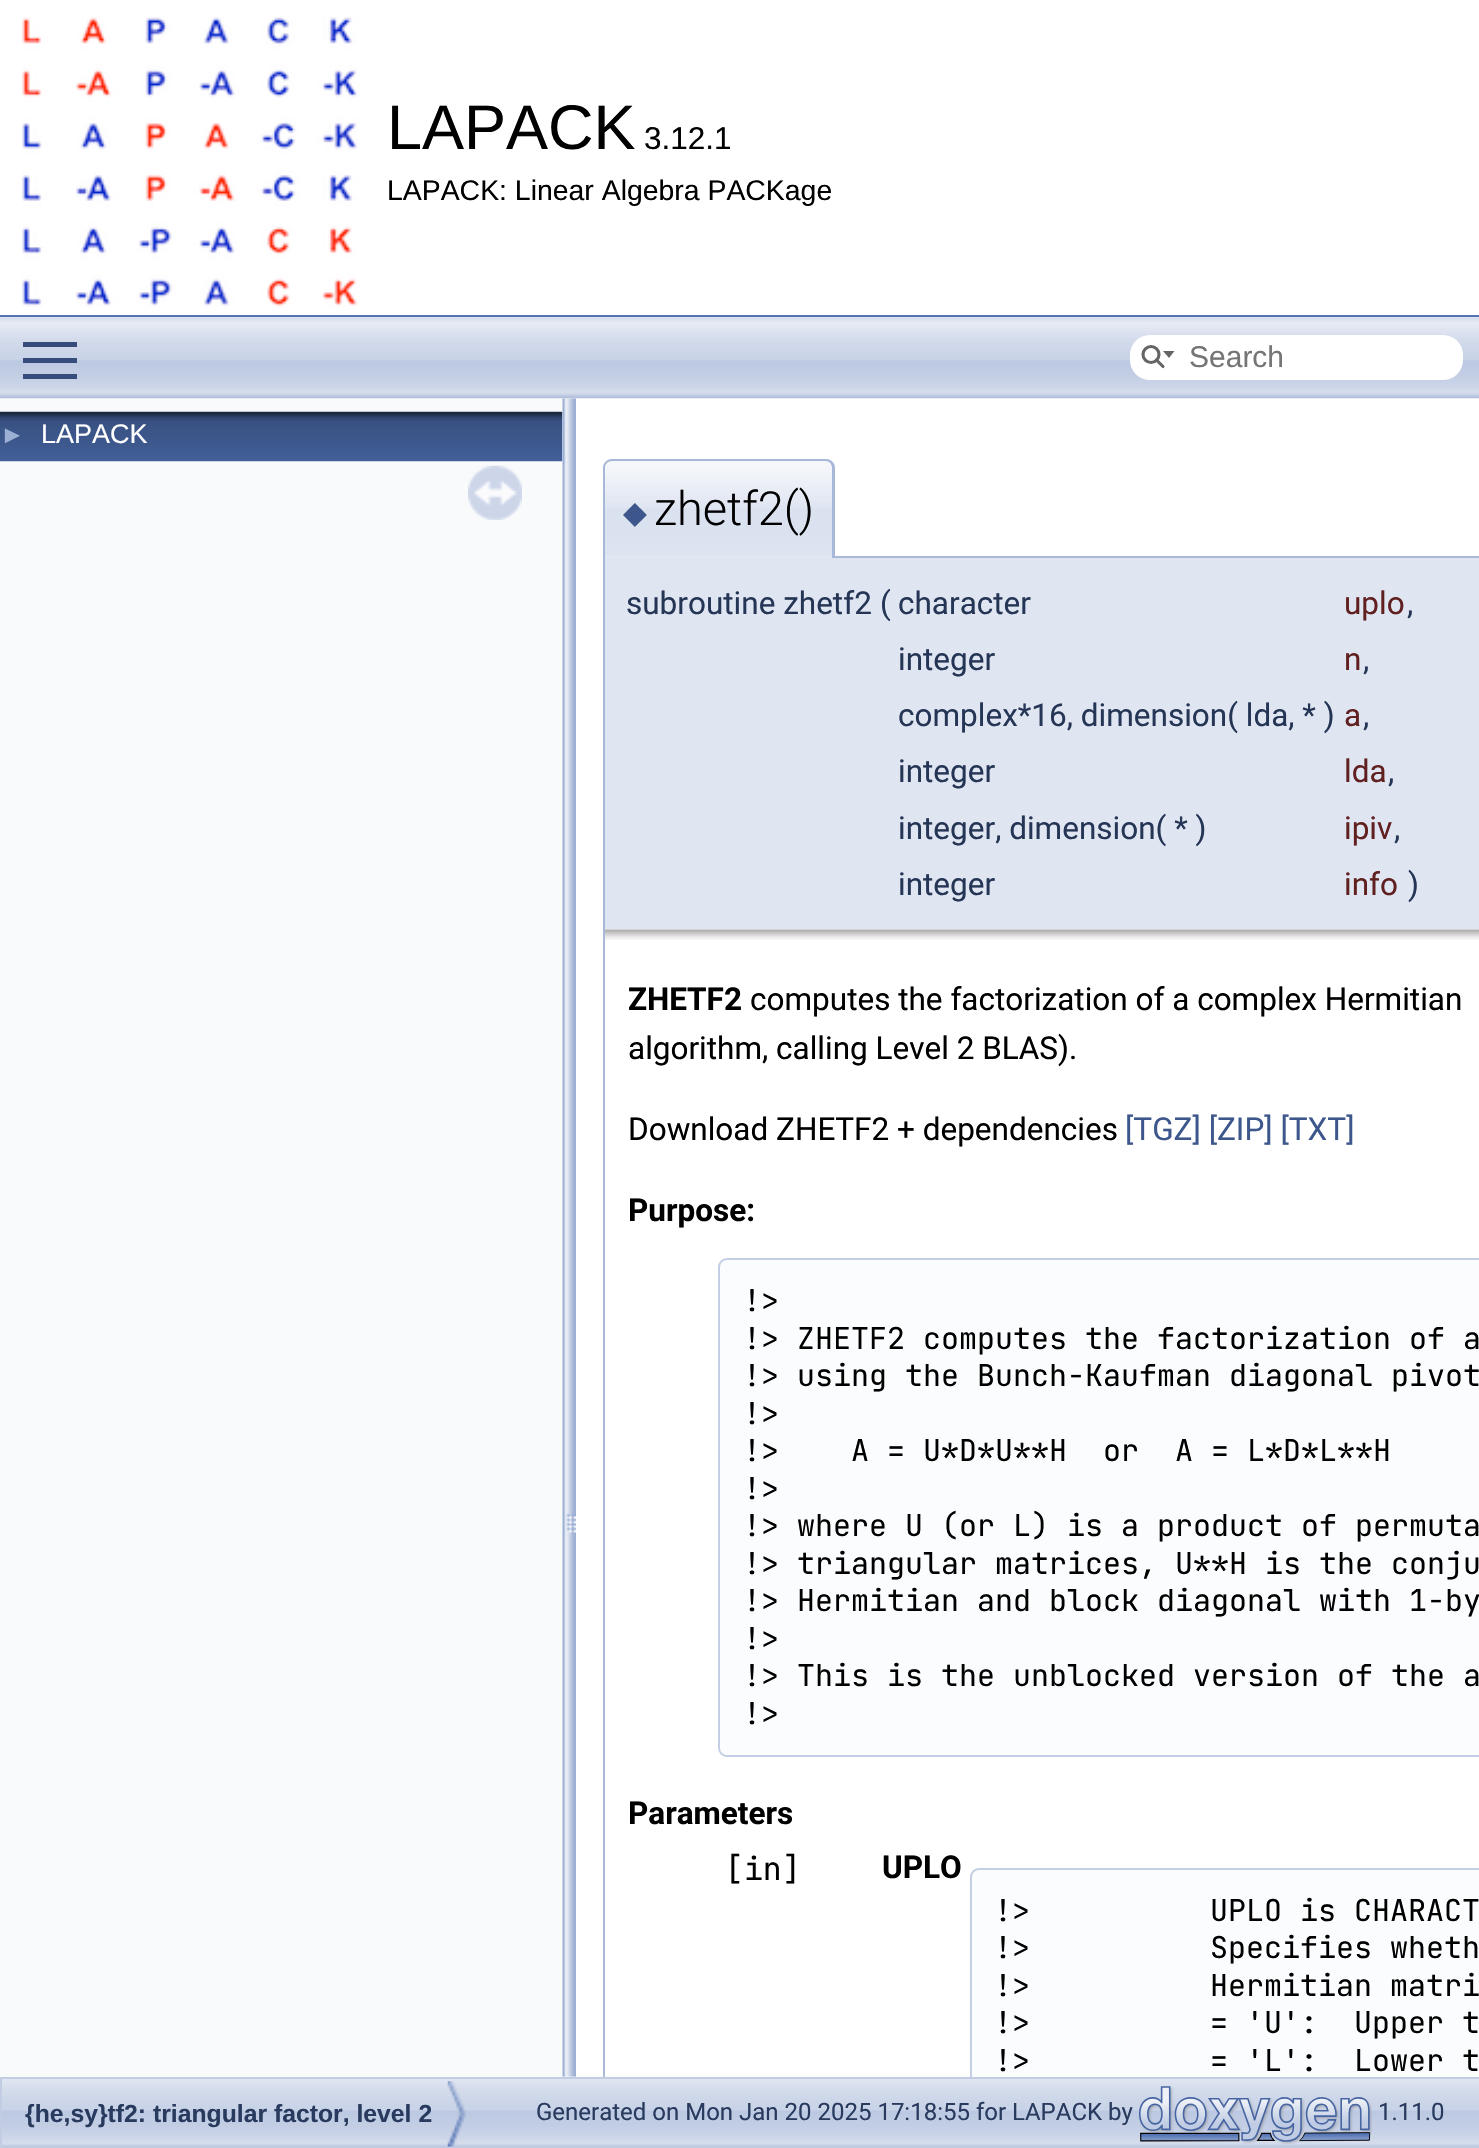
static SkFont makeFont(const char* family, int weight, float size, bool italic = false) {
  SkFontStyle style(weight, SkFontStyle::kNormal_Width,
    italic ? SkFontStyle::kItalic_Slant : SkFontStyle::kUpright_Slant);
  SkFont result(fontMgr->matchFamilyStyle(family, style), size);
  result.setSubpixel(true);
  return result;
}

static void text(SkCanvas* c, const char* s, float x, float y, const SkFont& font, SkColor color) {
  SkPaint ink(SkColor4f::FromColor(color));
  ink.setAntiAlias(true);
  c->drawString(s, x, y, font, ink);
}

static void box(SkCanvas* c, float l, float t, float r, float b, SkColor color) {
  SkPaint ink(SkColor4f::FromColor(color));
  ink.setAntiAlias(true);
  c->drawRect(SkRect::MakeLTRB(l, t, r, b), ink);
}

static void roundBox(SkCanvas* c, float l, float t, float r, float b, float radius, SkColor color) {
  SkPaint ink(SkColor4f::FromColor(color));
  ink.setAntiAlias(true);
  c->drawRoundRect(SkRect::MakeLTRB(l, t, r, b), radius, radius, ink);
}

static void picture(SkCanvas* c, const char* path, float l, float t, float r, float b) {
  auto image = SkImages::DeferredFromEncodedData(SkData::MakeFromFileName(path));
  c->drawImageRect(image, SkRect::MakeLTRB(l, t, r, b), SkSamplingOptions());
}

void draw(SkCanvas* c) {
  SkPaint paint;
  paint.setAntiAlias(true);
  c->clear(0xffffffff);
  box(c, 0, 315, 1479, 317, 0xff5373b4);
  picture(c, "img_01.png", 22, 17, 358, 307);
  SkFont face1 = makeFont("Liberation Sans", 400, 63);
  text(c, "LAPACK", 387, 149, face1, 0xff000000);
  SkFont face2 = makeFont("Liberation Sans", 400, 31.5f);
  text(c, "3.12.1", 644, 149, face2, 0xff000000);
  SkFont face3 = makeFont("Liberation Sans", 400, 28.4f);
  text(c, "LAPACK: Linear Algebra PACKage", 387, 200, face3, 0xff000000);
  paint.setColor(0xffa8b8d9);
  c->drawPath(SkPathBuilder(SkPathFillType::kEvenOdd).moveTo(603, 929).lineTo(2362, 929).lineTo(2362, 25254).cubicTo(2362, 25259, 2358, 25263, 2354, 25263).lineTo(612, 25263).cubicTo(607, 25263, 603, 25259, 603, 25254).close().moveTo(605, 929).lineTo(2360, 929).lineTo(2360, 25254).cubicTo(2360, 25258, 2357, 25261, 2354, 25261).lineTo(612, 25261).cubicTo(608, 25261, 605, 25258, 605, 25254).close().detach(), paint);
  picture(c, "img_08.png", 2, 2076, 1479, 2147);
  box(c, 0, 398, 563, 2077, 0xfff9fafc);
  picture(c, "img_03.png", 0, 411, 563, 462);
  picture(c, "img_05.png", 562, 398, 576, 2077);
  picture(c, "img_02.png", 0, 317, 1479, 399);
  box(c, 23, 358, 77, 363, 0xff364d7c);
  box(c, 23, 342, 77, 347, 0xff364d7c);
  box(c, 23, 374, 77, 379, 0xff364d7c);
  roundBox(c, 1130, 335, 1463, 380, 20, 0xffffffff);
  paint.setStyle(SkPaint::kStroke_Style);
  paint.setStrokeWidth(3.1f);
  paint.setColor(0xff656565);
  c->drawCircle(1151, 354.5f, 8, paint);
  paint.setStyle(SkPaint::kFill_Style);
  c->drawPath(SkPathBuilder().moveTo(1163, 351).lineTo(1169, 358).lineTo(1174.5f, 351).close().detach(), paint);
  paint.setStyle(SkPaint::kStroke_Style);
  paint.setStrokeCap(SkPaint::kRound_Cap);
  c->drawPath(SkPathBuilder().moveTo(1156.5f, 360).lineTo(1163, 366.5f).detach(), paint);
  SkFont face4 = makeFont("Liberation Sans", 400, 30);
  text(c, "Search", 1189, 367, face4, 0xff757575);
  SkFont face5 = makeFont("Liberation Sans", 400, 25);
  text(c, "►", 0, 443, face5, 0xff9cafd4);
  SkFont face6 = makeFont("Liberation Sans", 400, 27);
  text(c, "LAPACK", 41, 443, face6, 0xffffffff);
  picture(c, "img_04.png", 468, 465, 522, 520);
  box(c, 605, 558, 1479, 929, 0xffdfe5f1);
  paint.setStyle(SkPaint::kFill_Style);
  paint.setColor(0xffa8b8d9);
  c->drawPath(SkPathBuilder(SkPathFillType::kEvenOdd).moveTo(603, 556).lineTo(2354, 556).cubicTo(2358, 556, 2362, 560, 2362, 565).lineTo(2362, 929).lineTo(603, 929).close().moveTo(605, 558).lineTo(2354, 558).cubicTo(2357, 558, 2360, 561, 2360, 565).lineTo(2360, 929).lineTo(605, 929).close().detach(), paint);
  paint.setColor(0xffe2e8f2);
  c->drawPath(SkPathBuilder().moveTo(612, 459).lineTo(826, 459).cubicTo(831, 459, 835, 463, 835, 468).lineTo(835, 558).lineTo(603, 558).lineTo(603, 468).cubicTo(603, 463, 607, 459, 612, 459).close().detach(), paint);
  picture(c, "img_06.png", 603, 461, 835, 555);
  paint.setColor(0xffa8b8d9);
  c->drawPath(SkPathBuilder(SkPathFillType::kEvenOdd).moveTo(612, 459).lineTo(826, 459).cubicTo(831, 459, 835, 463, 835, 468).lineTo(835, 558).lineTo(603, 558).lineTo(603, 468).cubicTo(603, 463, 607, 459, 612, 459).close().moveTo(612, 461).lineTo(826, 461).cubicTo(829, 461, 832, 464, 832, 468).lineTo(832, 558).lineTo(605, 558).lineTo(605, 468).cubicTo(605, 464, 608, 461, 612, 461).close().detach(), paint);
  SkFont face7 = makeFont("DejaVu Sans", 400, 31);
  text(c, "◆", 623, 523, face7, 0xff3d578c);
  SkFont face8 = makeFont("Roboto", 300, 47);
  text(c, "zhetf2()", 654, 525, face8, 0xff000000);
  SkFont face9 = makeFont("Roboto", 400, 31.5f);
  text(c, "subroutine zhetf2", 626, 614, face9, 0xff253555);
  text(c, "(", 880, 614, face9, 0xff253555);
  text(c, "character", 898, 614, face9, 0xff253555);
  text(c, "uplo", 1344, 614, face9, 0xff602020);
  text(c, ",", 1407, 614, face9, 0xff253555);
  text(c, "integer", 898, 670, face9, 0xff253555);
  text(c, "n", 1344, 670, face9, 0xff602020);
  text(c, ",", 1363, 670, face9, 0xff253555);
  text(c, "complex*16, dimension( lda, * )", 898, 726, face9, 0xff253555);
  text(c, "a", 1344, 726, face9, 0xff602020);
  text(c, ",", 1363, 726, face9, 0xff253555);
  text(c, "integer", 898, 782, face9, 0xff253555);
  text(c, "lda", 1344, 782, face9, 0xff602020);
  text(c, ",", 1388, 782, face9, 0xff253555);
  text(c, "integer, dimension( * )", 898, 839, face9, 0xff253555);
  text(c, "ipiv", 1344, 839, face9, 0xff602020);
  text(c, ",", 1394, 839, face9, 0xff253555);
  text(c, "integer", 898, 895, face9, 0xff253555);
  text(c, "info", 1344, 895, face9, 0xff602020);
  text(c, ")", 1408, 895, face9, 0xff253555);
  picture(c, "img_07.png", 605, 929, 1479, 940);
  SkFont face10 = makeFont("Roboto", 700, 31.5f);
  text(c, "ZHETF2", 628, 1010, face10, 0xff000000);
  text(c, "computes the factorization of a complex Hermitian", 750, 1010, face9, 0xff000000);
  text(c, "algorithm, calling Level 2 BLAS).", 628, 1059, face9, 0xff000000);
  text(c, "Download ZHETF2 + dependencies", 628, 1140, face9, 0xff000000);
  text(c, "[TGZ] [ZIP] [TXT]", 1125, 1140, face9, 0xff3d578c);
  text(c, "Purpose:", 628, 1221, face10, 0xff000000);
  paint.setColor(0xfffbfcfd);
  c->drawPath(SkPathBuilder().moveTo(727, 1258).lineTo(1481, 1258).lineTo(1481, 1757).lineTo(727, 1757).cubicTo(722, 1757, 718, 1753, 718, 1748).lineTo(718, 1267).cubicTo(718, 1262, 722, 1258, 727, 1258).close().detach(), paint);
  paint.setStyle(SkPaint::kStroke_Style);
  paint.setStrokeWidth(2);
  paint.setStrokeCap(SkPaint::kButt_Cap);
  paint.setColor(0xffc4cfe5);
  c->drawRoundRect(SkRect::MakeLTRB(719, 1259, 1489, 1756), 8, 8, paint);
  SkFont face11 = makeFont("JetBrains Mono", 400, 30);
  text(c, "!>", 743, 1311, face11, 0xff000000);
  text(c, "!> ZHETF2 computes the factorization of a", 743, 1349, face11, 0xff000000);
  text(c, "!> using the Bunch-Kaufman diagonal pivot", 743, 1386, face11, 0xff000000);
  text(c, "!>", 743, 1424, face11, 0xff000000);
  text(c, "!>    A = U*D*U**H  or  A = L*D*L**H", 743, 1461, face11, 0xff000000);
  text(c, "!>", 743, 1499, face11, 0xff000000);
  text(c, "!> where U (or L) is a product of permuta", 743, 1536, face11, 0xff000000);
  text(c, "!> triangular matrices, U**H is the conju", 743, 1574, face11, 0xff000000);
  text(c, "!> Hermitian and block diagonal with 1-by", 743, 1611, face11, 0xff000000);
  text(c, "!>", 743, 1649, face11, 0xff000000);
  text(c, "!> This is the unblocked version of the a", 743, 1686, face11, 0xff000000);
  text(c, "!>", 743, 1724, face11, 0xff000000);
  text(c, "Parameters", 628, 1824, face10, 0xff000000);
  SkFont face12 = makeFont("JetBrains Mono", 400, 31.5f);
  text(c, "[in]", 725, 1880, face12, 0xff000000);
  text(c, "UPLO", 882, 1878, face10, 0xff000000);
  paint.setStyle(SkPaint::kFill_Style);
  paint.setColor(0xfffbfcfd);
  c->drawPath(SkPathBuilder().moveTo(979, 1868).lineTo(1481, 1868).lineTo(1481, 2077).lineTo(970, 2077).lineTo(970, 1877).cubicTo(970, 1872, 974, 1868, 979, 1868).close().detach(), paint);
  paint.setStyle(SkPaint::kStroke_Style);
  paint.setColor(0xffc2cde4);
  c->drawRect(SkRect::MakeLTRB(1, 2078, 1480, 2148), paint);
  SkFont face13 = makeFont("Roboto", 400, 24);
  text(c, "Generated on Mon Jan 20 2025 17:18:55 for LAPACK by", 536, 2120, face13, 0xff283a5d);
  picture(c, "img_10.png", 1139, 2086, 1372, 2145);
  c->save();
  c->clipRect(SkRect::MakeLTRB(576, 398, 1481, 2077));
  paint.setColor(0xffc4cfe5);
  c->drawRoundRect(SkRect::MakeLTRB(971, 1869, 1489, 2141), 8, 8, paint);
  c->restore();
  text(c, "!>          UPLO is CHARACT", 994, 1921, face11, 0xff000000);
  text(c, "!>          Specifies wheth", 994, 1958, face11, 0xff000000);
  text(c, "!>          Hermitian matri", 994, 1996, face11, 0xff000000);
  text(c, "!>          = 'U':  Upper t", 994, 2033, face11, 0xff000000);
  text(c, "!>          = 'L':  Lower t", 994, 2071, face11, 0xff000000);
  picture(c, "img_09.png", 447, 2081, 466, 2147);
  SkFont face14 = makeFont("Liberation Sans", 700, 24.75f);
  text(c, "{he,sy}tf2: triangular factor, level 2", 25, 2122, face14, 0xff283a5d);
  text(c, "1.11.0", 1378, 2120, face13, 0xff283a5d);
}
